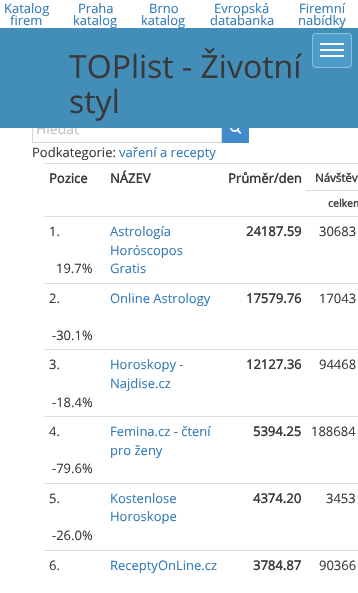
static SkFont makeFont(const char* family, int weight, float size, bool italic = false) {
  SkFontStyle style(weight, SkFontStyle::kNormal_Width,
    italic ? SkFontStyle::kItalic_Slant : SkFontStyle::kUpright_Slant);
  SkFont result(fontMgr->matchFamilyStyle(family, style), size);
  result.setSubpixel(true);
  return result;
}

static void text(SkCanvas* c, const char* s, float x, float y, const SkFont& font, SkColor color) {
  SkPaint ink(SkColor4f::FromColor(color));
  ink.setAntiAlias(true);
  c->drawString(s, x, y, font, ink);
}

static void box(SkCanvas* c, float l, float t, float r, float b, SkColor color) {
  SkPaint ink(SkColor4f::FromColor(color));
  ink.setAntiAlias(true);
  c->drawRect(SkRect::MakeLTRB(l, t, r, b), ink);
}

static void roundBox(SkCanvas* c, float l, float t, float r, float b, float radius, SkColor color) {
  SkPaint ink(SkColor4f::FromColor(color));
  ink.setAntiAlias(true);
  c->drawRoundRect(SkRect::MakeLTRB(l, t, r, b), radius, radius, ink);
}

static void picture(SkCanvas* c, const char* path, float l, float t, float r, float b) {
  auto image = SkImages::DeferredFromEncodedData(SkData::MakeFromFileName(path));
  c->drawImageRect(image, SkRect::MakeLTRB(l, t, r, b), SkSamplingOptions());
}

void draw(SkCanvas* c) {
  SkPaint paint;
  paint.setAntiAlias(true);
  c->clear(0xffffffff);
  SkFont face1 = makeFont("Open Sans", 400, 13);
  text(c, "Katalog", 4, 13, face1, 0xff337ab7);
  text(c, "firem", 10, 25, face1, 0xff337ab7);
  text(c, "Praha", 78, 13, face1, 0xff337ab7);
  paint.setStyle(SkPaint::kStroke_Style);
  paint.setStrokeWidth(1);
  paint.setColor(0xffd5d5d5);
  c->drawRect(SkRect::MakeLTRB(32.5f, 113.5f, 221.5f, 142.5f), paint);
  SkFont face2 = makeFont("Open Sans", 400, 14);
  text(c, "Hledat", 36, 134, face2, 0xffc0c0c0);
  box(c, 0, 28, 358, 128, 0xff438eb9);
  text(c, "katalog", 73, 25, face1, 0xff337ab7);
  text(c, "Brno", 149, 13, face1, 0xff337ab7);
  text(c, "katalog", 141, 25, face1, 0xff337ab7);
  text(c, "Evropská", 214, 13, face1, 0xff337ab7);
  text(c, "databanka", 210, 25, face1, 0xff337ab7);
  text(c, "Firemní", 299, 13, face1, 0xff337ab7);
  text(c, "nabídky", 298, 25, face1, 0xff337ab7);
  SkFont face3 = makeFont("Open Sans", 400, 32);
  text(c, "TOPlist - Životní", 69, 78, face3, 0xff393939);
  text(c, "styl", 69, 113, face3, 0xff393939);
  roundBox(c, 312, 33, 352, 68, 4, 0xff4d9dcc);
  paint.setColor(0x59ffffff);
  c->drawRoundRect(SkRect::MakeLTRB(312.5f, 33.5f, 351.5f, 67.5f), 3.5f, 3.5f, paint);
  box(c, 320, 43, 344, 45, 0xffffffff);
  box(c, 320, 49, 344, 51, 0xffffffff);
  box(c, 320, 55, 344, 57, 0xffffffff);
  box(c, 222, 128, 249, 143, 0xff428bca);
  picture(c, "img_01.png", 230, 128, 242, 134);
  text(c, "Podkategorie:", 32, 157, face1, 0xff393939);
  text(c, "vaření a recepty", 119, 157, face1, 0xff337ab7);
  SkFont face4 = makeFont("Open Sans", 700, 13);
  text(c, "Pozice", 49, 183, face4, 0xff393939);
  text(c, "NÁZEV", 110, 183, face4, 0xff393939);
  text(c, "Průměr/den", 228, 183, face4, 0xff393939);
  box(c, 44, 163, 358, 164, 0xffdddddd);
  SkFont face5 = makeFont("Open Sans", 700, 11.5f);
  text(c, "Návštěv", 315, 182, face5, 0xff393939);
  box(c, 306, 190, 358, 191, 0xffdddddd);
  SkFont face6 = makeFont("Open Sans", 700, 10.5f);
  text(c, "celkem", 328, 207, face6, 0xff393939);
  text(c, "1.", 49, 236, face1, 0xff393939);
  text(c, "19.7%", 56, 273, face1, 0xff393939);
  text(c, "Astrología", 110, 236, face1, 0xff337ab7);
  text(c, "Horóscopos", 110, 255, face1, 0xff337ab7);
  text(c, "Gratis", 110, 273, face1, 0xff337ab7);
  text(c, "24187.59", 246, 236, face4, 0xff393939);
  box(c, 44, 216, 358, 217, 0xffdddddd);
  text(c, "30683", 319, 236, face1, 0xff393939);
  text(c, "2.", 49, 303, face1, 0xff393939);
  text(c, "-30.1%", 52, 340, face1, 0xff393939);
  text(c, "Online Astrology", 110, 303, face1, 0xff337ab7);
  text(c, "17579.76", 246, 303, face4, 0xff393939);
  box(c, 44, 283, 358, 284, 0xffdddddd);
  text(c, "17043", 319, 303, face1, 0xff393939);
  text(c, "3.", 49, 369, face1, 0xff393939);
  text(c, "-18.4%", 52, 407, face1, 0xff393939);
  text(c, "Horoskopy -", 110, 369, face1, 0xff337ab7);
  text(c, "Najdise.cz", 110, 388, face1, 0xff337ab7);
  text(c, "12127.36", 246, 369, face4, 0xff393939);
  box(c, 44, 349, 358, 350, 0xffdddddd);
  text(c, "94468", 319, 369, face1, 0xff393939);
  text(c, "4.", 49, 436, face1, 0xff393939);
  text(c, "-79.6%", 52, 473, face1, 0xff393939);
  text(c, "Femina.cz - čtení", 110, 436, face1, 0xff337ab7);
  text(c, "pro ženy", 110, 455, face1, 0xff337ab7);
  text(c, "5394.25", 253, 436, face4, 0xff393939);
  box(c, 44, 416, 358, 417, 0xffdddddd);
  text(c, "188684", 311, 436, face1, 0xff393939);
  text(c, "5.", 49, 503, face1, 0xff393939);
  text(c, "-26.0%", 52, 540, face1, 0xff393939);
  text(c, "Kostenlose", 110, 503, face1, 0xff337ab7);
  text(c, "Horoskope", 110, 521, face1, 0xff337ab7);
  text(c, "4374.20", 253, 503, face4, 0xff393939);
  box(c, 44, 483, 358, 484, 0xffdddddd);
  text(c, "3453", 326, 503, face1, 0xff393939);
  text(c, "6.", 49, 570, face1, 0xff393939);
  text(c, "ReceptyOnLine.cz", 110, 570, face1, 0xff337ab7);
  text(c, "3784.87", 253, 570, face4, 0xff393939);
  box(c, 44, 550, 358, 551, 0xffdddddd);
  text(c, "90366", 319, 570, face1, 0xff393939);
}
